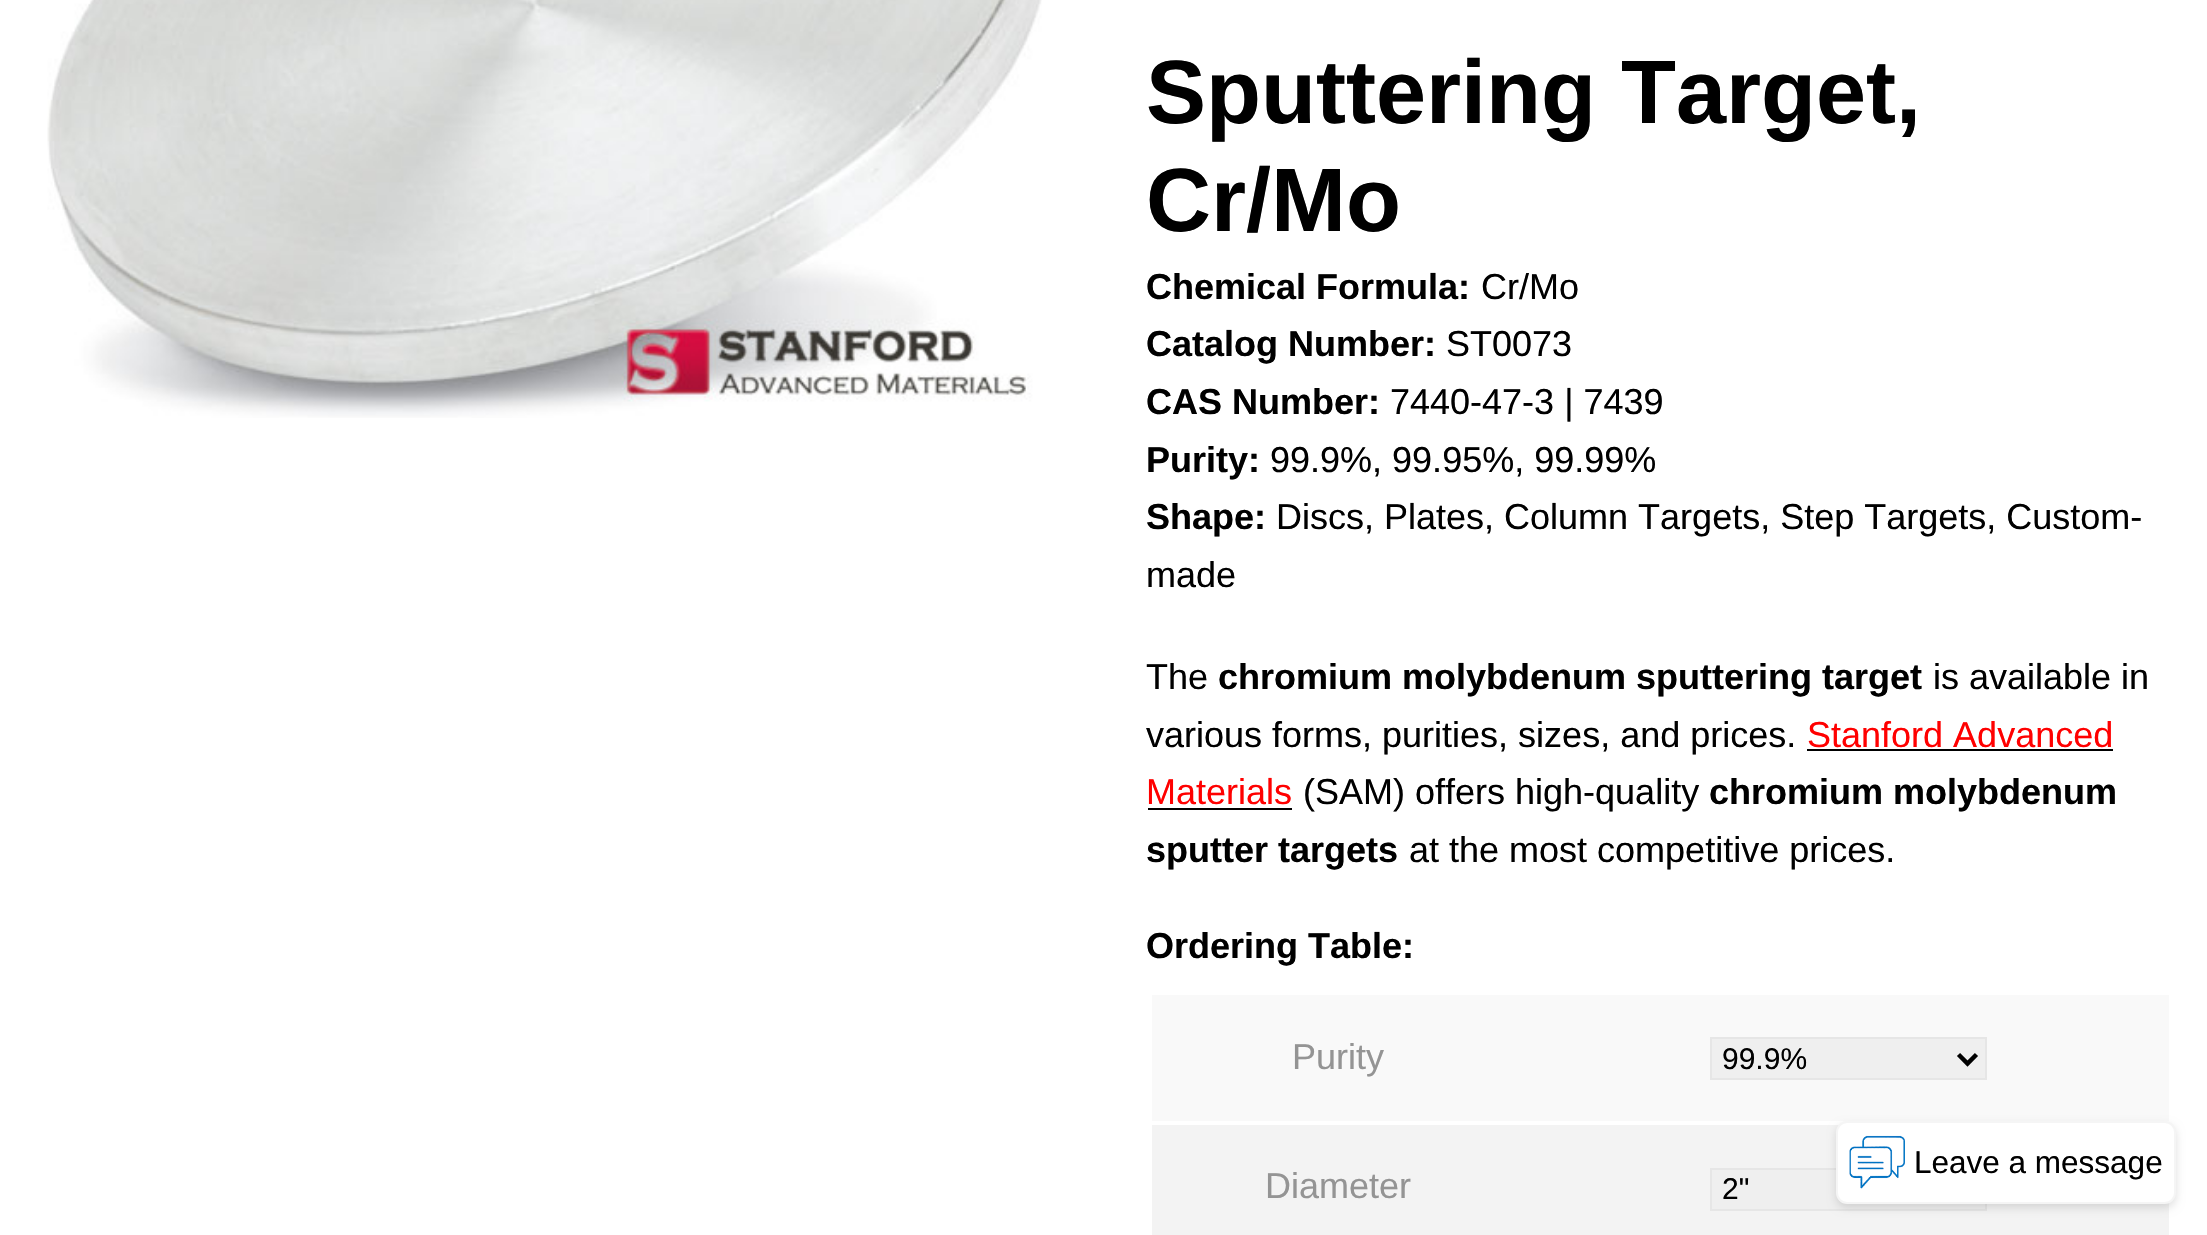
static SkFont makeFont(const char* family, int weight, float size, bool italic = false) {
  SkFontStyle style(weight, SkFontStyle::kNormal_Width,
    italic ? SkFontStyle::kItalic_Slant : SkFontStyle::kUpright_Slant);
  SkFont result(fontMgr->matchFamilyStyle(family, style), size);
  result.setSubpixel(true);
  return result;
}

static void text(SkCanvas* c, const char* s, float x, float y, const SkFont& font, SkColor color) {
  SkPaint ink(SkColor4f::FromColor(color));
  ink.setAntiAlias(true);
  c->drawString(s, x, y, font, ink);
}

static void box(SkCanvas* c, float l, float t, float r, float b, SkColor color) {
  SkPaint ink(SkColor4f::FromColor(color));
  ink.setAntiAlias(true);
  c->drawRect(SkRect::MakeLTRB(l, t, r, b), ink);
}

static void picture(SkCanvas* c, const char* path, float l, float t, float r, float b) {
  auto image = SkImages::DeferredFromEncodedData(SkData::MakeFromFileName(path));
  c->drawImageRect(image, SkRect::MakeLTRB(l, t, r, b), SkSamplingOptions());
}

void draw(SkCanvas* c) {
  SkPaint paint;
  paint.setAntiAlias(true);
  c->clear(0xffffffff);
  picture(c, "img_01.png", 47, 0, 1042, 418);
  SkFont face1 = makeFont("Liberation Sans", 700, 90);
  text(c, "Sputtering Target,", 1146, 123, face1, 0xff000000);
  text(c, "Cr/Mo", 1146, 231, face1, 0xff000000);
  SkFont face2 = makeFont("Liberation Sans", 700, 36);
  text(c, "Chemical Formula:", 1146, 299, face2, 0xff000000);
  SkFont face3 = makeFont("Liberation Sans", 400, 36);
  text(c, "Cr/Mo", 1481, 299, face3, 0xff000000);
  text(c, "Catalog Number:", 1146, 356, face2, 0xff000000);
  text(c, "ST0073", 1446, 356, face3, 0xff000000);
  text(c, "CAS Number:", 1146, 414, face2, 0xff000000);
  text(c, "7440-47-3 | 7439", 1390, 414, face3, 0xff000000);
  text(c, "Purity:", 1146, 472, face2, 0xff000000);
  text(c, "99.9%, 99.95%, 99.99%", 1270, 472, face3, 0xff000000);
  text(c, "Shape:", 1146, 529, face2, 0xff000000);
  text(c, "Discs, Plates, Column Targets, Step Targets, Custom-", 1276, 529, face3, 0xff000000);
  text(c, "made", 1146, 587, face3, 0xff000000);
  text(c, "The", 1146, 689, face3, 0xff000000);
  text(c, "chromium molybdenum sputtering target", 1218, 689, face2, 0xff000000);
  text(c, "is available in", 1933, 689, face3, 0xff000000);
  text(c, "various forms, purities, sizes, and prices.", 1146, 747, face3, 0xff000000);
  text(c, "Stanford Advanced", 1807, 747, face3, 0xffff0000);
  box(c, 1807, 749, 2113, 751, 0xff000000);
  text(c, "Materials", 1146, 804, face3, 0xffff0000);
  box(c, 1148, 808, 1292, 810, 0xff000000);
  text(c, "(SAM) offers high-quality", 1303, 804, face3, 0xff000000);
  text(c, "chromium molybdenum", 1709, 804, face2, 0xff000000);
  text(c, "sputter targets", 1146, 862, face2, 0xff000000);
  text(c, "at the most competitive prices.", 1409, 862, face3, 0xff000000);
  text(c, "Ordering Table:", 1146, 958, face2, 0xff000000);
  box(c, 1152, 995, 2169, 1121, 0xfff9f9f9);
  text(c, "Purity", 1292, 1069, face3, 0xff949494);
  paint.setColor(0xffefefef);
  c->drawRect(SkRect::MakeLTRB(1711, 1038, 1986, 1079), paint);
  paint.setStyle(SkPaint::kStroke_Style);
  paint.setStrokeWidth(2);
  paint.setColor(0xffe6e6e6);
  c->drawRect(SkRect::MakeLTRB(1711, 1038, 1986, 1079), paint);
  paint.setStrokeWidth(4.5f);
  paint.setColor(0xff000000);
  c->drawPath(SkPathBuilder().moveTo(1958.5f, 1054.5f).lineTo(1967.5f, 1063.5f).lineTo(1976.5f, 1054.5f).detach(), paint);
  SkFont face4 = makeFont("Liberation Sans", 400, 30);
  text(c, "99.9%", 1722, 1069, face4, 0xff000000);
  box(c, 1152, 1125, 2169, 1235, 0xfff3f3f3);
  text(c, "Diameter", 1265, 1198, face3, 0xff949494);
  paint.setStyle(SkPaint::kFill_Style);
  paint.setColor(0xffefefef);
  c->drawRect(SkRect::MakeLTRB(1711, 1169, 1986, 1210), paint);
  paint.setStyle(SkPaint::kStroke_Style);
  paint.setStrokeWidth(2);
  paint.setColor(0xffe6e6e6);
  c->drawRect(SkRect::MakeLTRB(1711, 1169, 1986, 1210), paint);
  text(c, "2\"", 1722, 1199, face4, 0xff000000);
  paint.setStyle(SkPaint::kFill_Style);
  paint.setColor(0x1f000000);
  paint.setMaskFilter(SkMaskFilter::MakeBlur(kNormal_SkBlurStyle, 4.5f));
  c->drawRoundRect(SkRect::MakeLTRB(1836, 1125, 2176, 1208), 11, 11, paint);
  paint.setMaskFilter(nullptr);
  paint.setColor(0xffffffff);
  c->drawRoundRect(SkRect::MakeLTRB(1837, 1122, 2175, 1203), 10, 10, paint);
  paint.setStyle(SkPaint::kStroke_Style);
  paint.setColor(0xfff5f5f5);
  c->drawRoundRect(SkRect::MakeLTRB(1837, 1122, 2175, 1203), 10, 10, paint);
  picture(c, "img_02.png", 1849, 1135, 1905, 1189);
  SkFont face5 = makeFont("Liberation Sans", 400, 31.5f);
  text(c, "Leave a message", 1914, 1173, face5, 0xff000000);
}
